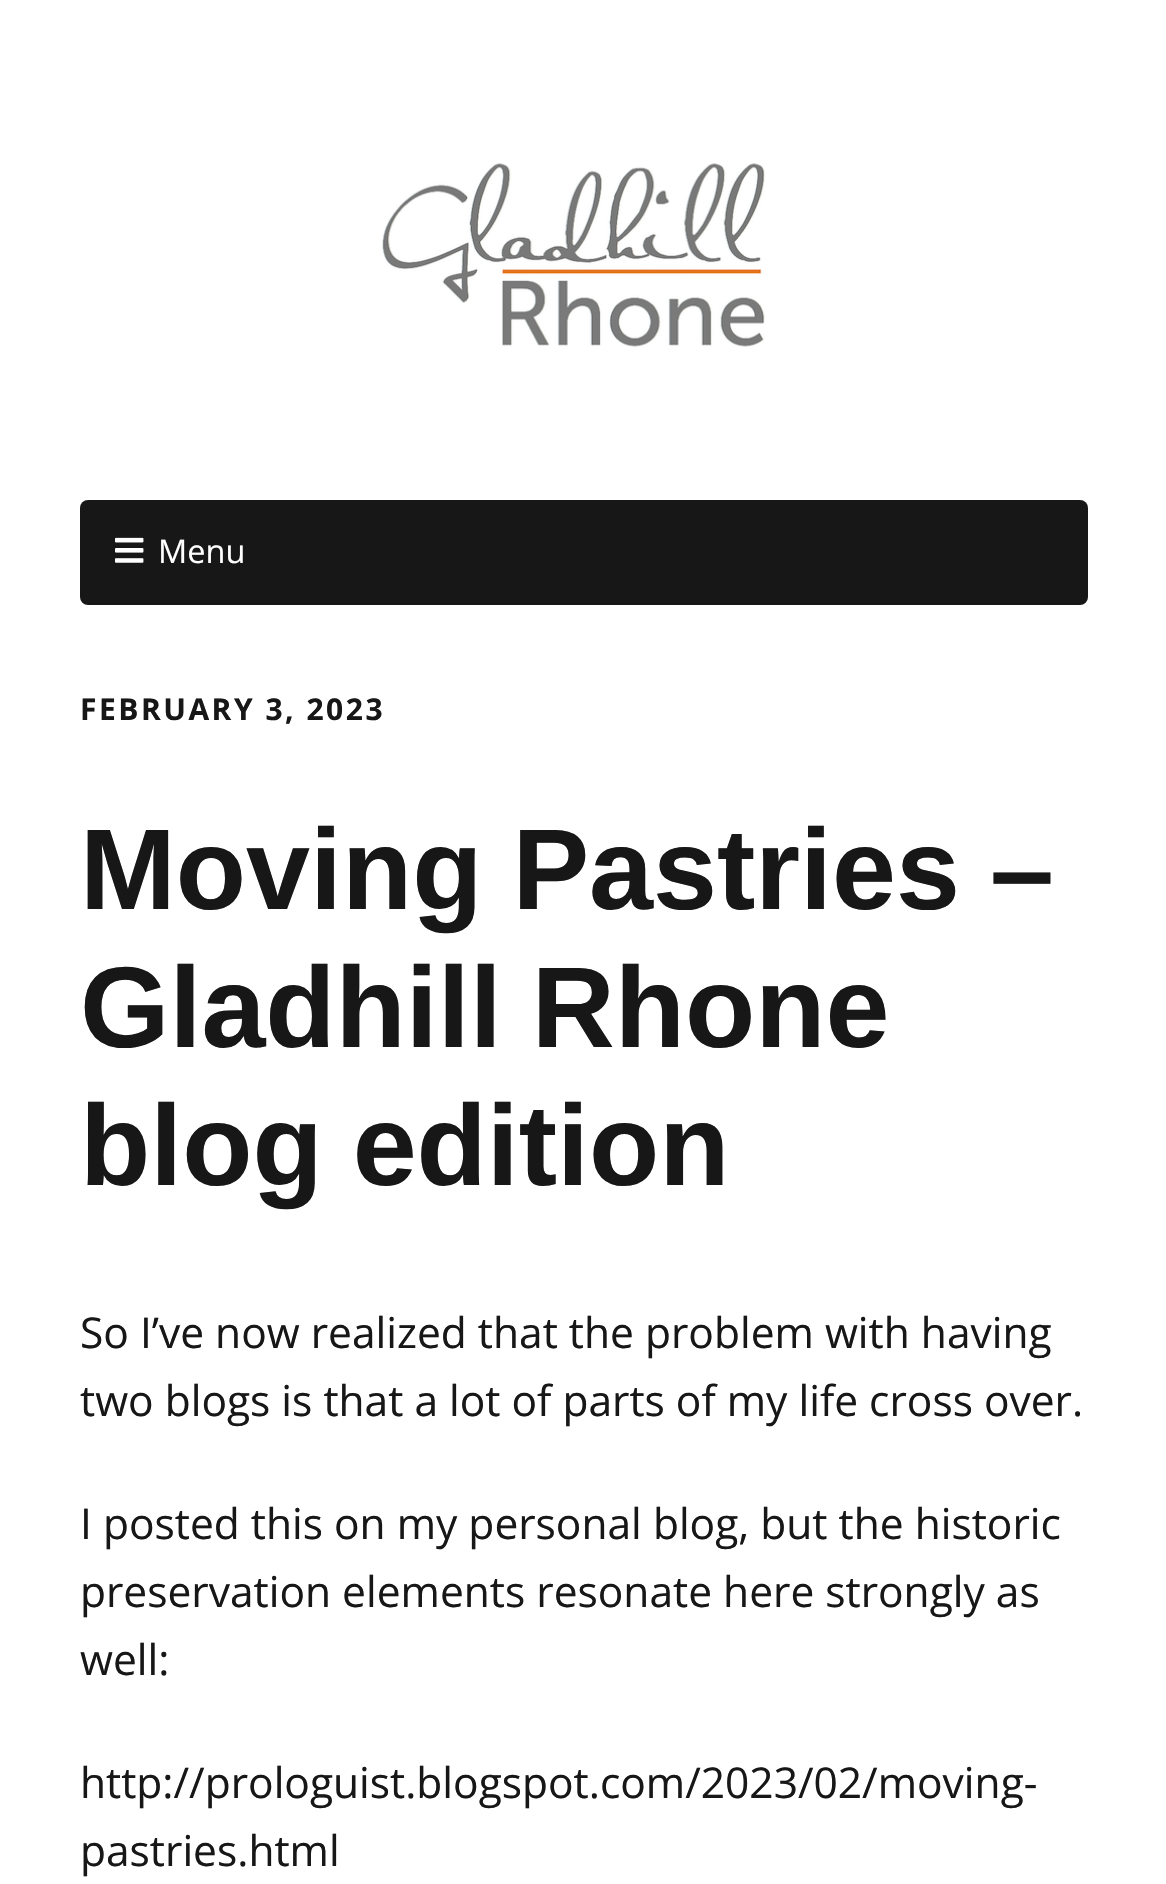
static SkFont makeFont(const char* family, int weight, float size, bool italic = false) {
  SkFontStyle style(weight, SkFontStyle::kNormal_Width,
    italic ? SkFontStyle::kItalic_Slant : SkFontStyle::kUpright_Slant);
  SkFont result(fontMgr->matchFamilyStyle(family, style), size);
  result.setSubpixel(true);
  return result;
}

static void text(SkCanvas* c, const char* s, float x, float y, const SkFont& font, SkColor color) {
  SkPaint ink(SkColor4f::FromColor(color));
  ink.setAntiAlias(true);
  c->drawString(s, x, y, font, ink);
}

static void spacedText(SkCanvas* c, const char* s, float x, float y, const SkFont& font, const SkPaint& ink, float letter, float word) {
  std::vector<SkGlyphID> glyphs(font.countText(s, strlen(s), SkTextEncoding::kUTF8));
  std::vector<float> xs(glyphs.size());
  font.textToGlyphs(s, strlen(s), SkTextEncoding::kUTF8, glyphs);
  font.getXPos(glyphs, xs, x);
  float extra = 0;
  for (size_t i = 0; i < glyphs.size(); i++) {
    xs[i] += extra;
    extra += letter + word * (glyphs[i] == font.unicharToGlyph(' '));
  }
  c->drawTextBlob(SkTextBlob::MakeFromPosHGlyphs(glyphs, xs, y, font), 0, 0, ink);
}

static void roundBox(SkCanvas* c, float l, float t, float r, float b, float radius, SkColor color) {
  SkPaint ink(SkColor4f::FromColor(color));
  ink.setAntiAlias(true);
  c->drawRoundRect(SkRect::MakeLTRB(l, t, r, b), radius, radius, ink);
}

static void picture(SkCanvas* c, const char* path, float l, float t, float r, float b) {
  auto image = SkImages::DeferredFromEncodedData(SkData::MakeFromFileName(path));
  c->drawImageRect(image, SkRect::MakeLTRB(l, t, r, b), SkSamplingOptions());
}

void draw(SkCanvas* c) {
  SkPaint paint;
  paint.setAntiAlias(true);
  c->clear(0xffffffff);
  picture(c, "img_01.png", 382, 163, 765, 347);
  roundBox(c, 80, 500, 1088, 605, 8, 0xff171717);
  picture(c, "img_02.png", 115, 537, 144, 563);
  SkFont face1 = makeFont("Open Sans", 400, 32.5f);
  text(c, "Menu", 158, 563, face1, 0xffffffff);
  SkFont face2 = makeFont("Open Sans", 700, 30);
  paint.setColor(0xff171717);
  spacedText(c, "FEBRUARY 3, 2023", 80, 720, face2, paint, 2.5f, 0);
  SkFont face3 = makeFont("Liberation Sans", 700, 115);
  spacedText(c, "Moving Pastries –", 80, 909, face3, paint, 0, -2);
  spacedText(c, "Gladhill Rhone", 80, 1047, face3, paint, 0, -2);
  spacedText(c, "blog edition", 80, 1185, face3, paint, 0, -2);
  SkFont face4 = makeFont("Open Sans", 400, 42.5f);
  text(c, "So I’ve now realized that the problem with having", 80, 1348, face4, 0xff171717);
  text(c, "two blogs is that a lot of parts of my life cross over.", 80, 1416, face4, 0xff171717);
  text(c, "I posted this on my personal blog, but the historic", 80, 1539, face4, 0xff171717);
  text(c, "preservation elements resonate here strongly as", 80, 1607, face4, 0xff171717);
  text(c, "well:", 80, 1675, face4, 0xff171717);
  text(c, "http://prologuist.blogspot.com/2023/02/moving-", 80, 1798, face4, 0xff171717);
  text(c, "pastries.html", 80, 1866, face4, 0xff171717);
}
